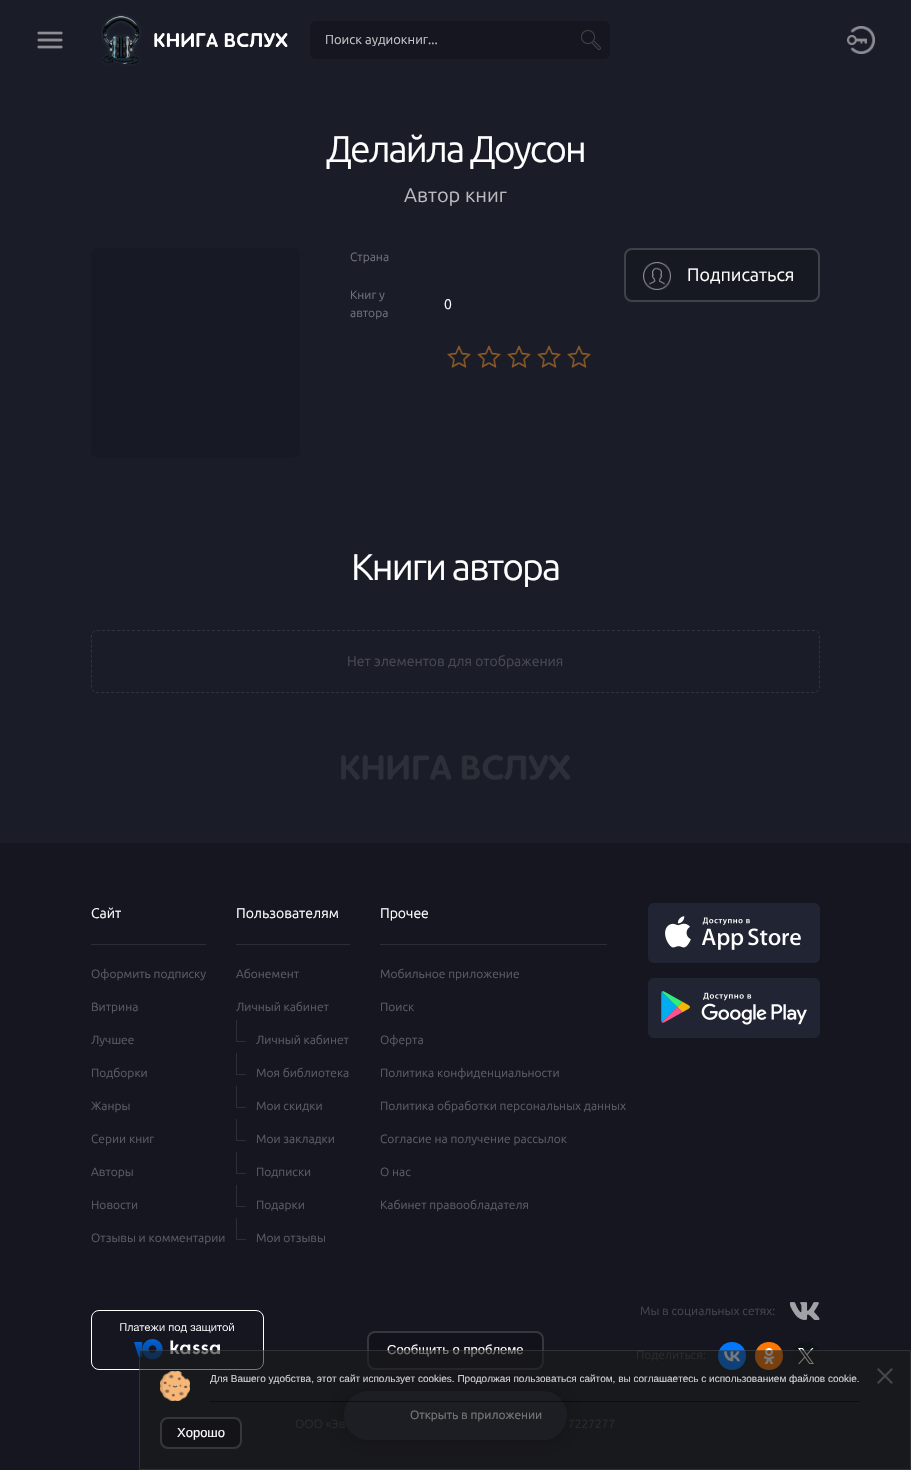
static SkFont makeFont(const char* family, int weight, float size, bool italic = false) {
  SkFontStyle style(weight, SkFontStyle::kNormal_Width,
    italic ? SkFontStyle::kItalic_Slant : SkFontStyle::kUpright_Slant);
  SkFont result(fontMgr->matchFamilyStyle(family, style), size);
  result.setSubpixel(true);
  return result;
}

static void text(SkCanvas* c, const char* s, float x, float y, const SkFont& font, SkColor color) {
  SkPaint ink(SkColor4f::FromColor(color));
  ink.setAntiAlias(true);
  c->drawString(s, x, y, font, ink);
}

static void spacedText(SkCanvas* c, const char* s, float x, float y, const SkFont& font, const SkPaint& ink, float letter, float word) {
  std::vector<SkGlyphID> glyphs(font.countText(s, strlen(s), SkTextEncoding::kUTF8));
  std::vector<float> xs(glyphs.size());
  font.textToGlyphs(s, strlen(s), SkTextEncoding::kUTF8, glyphs);
  font.getXPos(glyphs, xs, x);
  float extra = 0;
  for (size_t i = 0; i < glyphs.size(); i++) {
    xs[i] += extra;
    extra += letter + word * (glyphs[i] == font.unicharToGlyph(' '));
  }
  c->drawTextBlob(SkTextBlob::MakeFromPosHGlyphs(glyphs, xs, y, font), 0, 0, ink);
}

static void box(SkCanvas* c, float l, float t, float r, float b, SkColor color) {
  SkPaint ink(SkColor4f::FromColor(color));
  ink.setAntiAlias(true);
  c->drawRect(SkRect::MakeLTRB(l, t, r, b), ink);
}

static void roundBox(SkCanvas* c, float l, float t, float r, float b, float radius, SkColor color) {
  SkPaint ink(SkColor4f::FromColor(color));
  ink.setAntiAlias(true);
  c->drawRoundRect(SkRect::MakeLTRB(l, t, r, b), radius, radius, ink);
}

static void picture(SkCanvas* c, const char* path, float l, float t, float r, float b) {
  auto image = SkImages::DeferredFromEncodedData(SkData::MakeFromFileName(path));
  c->drawImageRect(image, SkRect::MakeLTRB(l, t, r, b), SkSamplingOptions());
}

void draw(SkCanvas* c) {
  SkPaint paint;
  paint.setAntiAlias(true);
  c->clear(0xff1a1c28);
  picture(c, "img_01.png", 37, 31, 63, 49);
  picture(c, "img_02.png", 101, 14, 288, 66);
  roundBox(c, 310, 21, 610, 59, 6, 0xff151620);
  picture(c, "img_03.png", 581, 30, 601, 50);
  c->save();
  c->clipRect(SkRect::MakeLTRB(325, 32, 580, 46));
  SkFont face1 = makeFont("Ubuntu", 400, 13);
  text(c, "Поиск аудиокниг...", 325, 44, face1, 0xffc5c5c7);
  c->restore();
  picture(c, "img_04.png", 581, 30, 601, 50);
  picture(c, "img_05.png", 847, 26, 875, 54);
  SkFont face2 = makeFont("Ubuntu", 400, 37.25f);
  paint.setColor(0xffffffff);
  spacedText(c, "Делайла Доусон", 326, 162, face2, paint, -1.9f, 0);
  SkFont face3 = makeFont("Ubuntu", 400, 20);
  text(c, "Автор книг", 404, 202, face3, 0xffbabbbf);
  roundBox(c, 91, 248, 300, 458, 6, 0xff171924);
  SkFont face4 = makeFont("Ubuntu", 400, 12);
  text(c, "Страна", 350, 261, face4, 0xff71727a);
  text(c, "Книг у", 350, 299, face4, 0xff71727a);
  text(c, "автора", 350, 317, face4, 0xff71727a);
  SkFont face5 = makeFont("Ubuntu", 400, 14);
  text(c, "0", 444, 309, face5, 0xffffffff);
  picture(c, "img_06.png", 447, 345, 591, 368);
  roundBox(c, 624, 248, 820, 302, 8, 0xff161822);
  paint.setStyle(SkPaint::kStroke_Style);
  paint.setStrokeWidth(2);
  paint.setColor(0x2effffff);
  c->drawRoundRect(SkRect::MakeLTRB(625, 249, 819, 301), 7, 7, paint);
  box(c, 652, 274, 653, 276, 0xff13151e);
  picture(c, "img_07.png", 643, 262, 671, 290);
  SkFont face6 = makeFont("Ubuntu", 400, 18);
  text(c, "Подписаться", 687, 281, face6, 0xffffffff);
  paint.setStyle(SkPaint::kFill_Style);
  paint.setColor(0xffffffff);
  spacedText(c, "Книги автора", 351, 580, face2, paint, -1.9f, 0);
  paint.setStyle(SkPaint::kStroke_Style);
  paint.setStrokeWidth(1);
  paint.setColor(0xff31333e);
  paint.setPathEffect(SkDashPathEffect::Make({{3, 2}}, 0));
  c->drawPath(SkPathBuilder().moveTo(97, 630.5f).lineTo(814, 630.5f).cubicTo(817, 630.5f, 819.5f, 633, 819.5f, 636).lineTo(819.5f, 687).cubicTo(819.5f, 690, 817, 692.5f, 814, 692.5f).lineTo(97, 692.5f).cubicTo(94, 692.5f, 91.5f, 690, 91.5f, 687).lineTo(91.5f, 636).cubicTo(91.5f, 633, 94, 630.5f, 97, 630.5f).close().detach(), paint);
  paint.setPathEffect(nullptr);
  text(c, "Нет элементов для отображения", 347, 666, face5, 0xff484953);
  picture(c, "img_08.png", 341, 755, 570, 780);
  box(c, 0, 843, 911, 1470, 0xff151620);
  box(c, 91, 944, 206, 945, 0xff2c2d36);
  text(c, "Сайт", 91, 918, face5, 0xffffffff);
  text(c, "Оформить подписку", 91, 978, face4, 0xff5b5c63);
  text(c, "Витрина", 91, 1011, face4, 0xff5b5c63);
  text(c, "Лучшее", 91, 1044, face4, 0xff5b5c63);
  text(c, "Подборки", 91, 1077, face4, 0xff5b5c63);
  text(c, "Жанры", 91, 1110, face4, 0xff5b5c63);
  text(c, "Серии книг", 91, 1143, face4, 0xff5b5c63);
  text(c, "Авторы", 91, 1176, face4, 0xff5b5c63);
  text(c, "Новости", 91, 1209, face4, 0xff5b5c63);
  text(c, "Отзывы и комментарии", 91, 1242, face4, 0xff5b5c63);
  box(c, 236, 944, 350, 945, 0xff2c2d36);
  text(c, "Пользователям", 236, 918, face5, 0xffffffff);
  text(c, "Абонемент", 236, 978, face4, 0xff5b5c63);
  text(c, "Личный кабинет", 236, 1011, face4, 0xff5b5c63);
  paint.setStyle(SkPaint::kFill_Style);
  paint.setColor(0xff2c2d36);
  c->drawPath(SkPathBuilder().moveTo(246, 1042).lineTo(236, 1042).lineTo(237, 1041).lineTo(246, 1041).close().detach(), paint);
  paint.setColor(0x1affffff);
  c->drawPath(SkPathBuilder().moveTo(236, 1042).lineTo(236, 1020).lineTo(237, 1020).lineTo(237, 1041).close().detach(), paint);
  text(c, "Личный кабинет", 256, 1044, face4, 0xff5b5c63);
  paint.setColor(0xff2c2d36);
  c->drawPath(SkPathBuilder().moveTo(246, 1075).lineTo(236, 1075).lineTo(237, 1074).lineTo(246, 1074).close().detach(), paint);
  paint.setColor(0x1affffff);
  c->drawPath(SkPathBuilder().moveTo(236, 1075).lineTo(236, 1053).lineTo(237, 1053).lineTo(237, 1074).close().detach(), paint);
  text(c, "Моя библиотека", 256, 1077, face4, 0xff5b5c63);
  paint.setColor(0xff2c2d36);
  c->drawPath(SkPathBuilder().moveTo(246, 1108).lineTo(236, 1108).lineTo(237, 1107).lineTo(246, 1107).close().detach(), paint);
  paint.setColor(0x1affffff);
  c->drawPath(SkPathBuilder().moveTo(236, 1108).lineTo(236, 1086).lineTo(237, 1086).lineTo(237, 1107).close().detach(), paint);
  text(c, "Мои скидки", 256, 1110, face4, 0xff5b5c63);
  paint.setColor(0xff2c2d36);
  c->drawPath(SkPathBuilder().moveTo(246, 1141).lineTo(236, 1141).lineTo(237, 1140).lineTo(246, 1140).close().detach(), paint);
  paint.setColor(0x1affffff);
  c->drawPath(SkPathBuilder().moveTo(236, 1141).lineTo(236, 1119).lineTo(237, 1119).lineTo(237, 1140).close().detach(), paint);
  text(c, "Мои закладки", 256, 1143, face4, 0xff5b5c63);
  paint.setColor(0xff2c2d36);
  c->drawPath(SkPathBuilder().moveTo(246, 1174).lineTo(236, 1174).lineTo(237, 1173).lineTo(246, 1173).close().detach(), paint);
  paint.setColor(0x1affffff);
  c->drawPath(SkPathBuilder().moveTo(236, 1174).lineTo(236, 1152).lineTo(237, 1152).lineTo(237, 1173).close().detach(), paint);
  text(c, "Подписки", 256, 1176, face4, 0xff5b5c63);
  paint.setColor(0xff2c2d36);
  c->drawPath(SkPathBuilder().moveTo(246, 1207).lineTo(236, 1207).lineTo(237, 1206).lineTo(246, 1206).close().detach(), paint);
  paint.setColor(0x1affffff);
  c->drawPath(SkPathBuilder().moveTo(236, 1207).lineTo(236, 1185).lineTo(237, 1185).lineTo(237, 1206).close().detach(), paint);
  text(c, "Подарки", 256, 1209, face4, 0xff5b5c63);
  paint.setColor(0xff2c2d36);
  c->drawPath(SkPathBuilder().moveTo(246, 1240).lineTo(236, 1240).lineTo(237, 1239).lineTo(246, 1239).close().detach(), paint);
  paint.setColor(0x1affffff);
  c->drawPath(SkPathBuilder().moveTo(236, 1240).lineTo(236, 1218).lineTo(237, 1218).lineTo(237, 1239).close().detach(), paint);
  text(c, "Мои отзывы", 256, 1242, face4, 0xff5b5c63);
  box(c, 380, 944, 607, 945, 0xff2c2d36);
  text(c, "Прочее", 380, 918, face5, 0xffffffff);
  text(c, "Мобильное приложение", 380, 978, face4, 0xff5b5c63);
  text(c, "Поиск", 380, 1011, face4, 0xff5b5c63);
  text(c, "Оферта", 380, 1044, face4, 0xff5b5c63);
  text(c, "Политика конфиденциальности", 380, 1077, face4, 0xff5b5c63);
  text(c, "Политика обработки персональных данных", 380, 1110, face4, 0xff5b5c63);
  text(c, "Согласие на получение рассылок", 380, 1143, face4, 0xff5b5c63);
  text(c, "О нас", 380, 1176, face4, 0xff5b5c63);
  text(c, "Кабинет правообладателя", 380, 1209, face4, 0xff5b5c63);
  roundBox(c, 648, 903, 820, 963, 6, 0xff212433);
  picture(c, "img_09.png", 665, 916, 801, 950);
  roundBox(c, 648, 978, 820, 1038, 6, 0xff212433);
  picture(c, "img_10.png", 661, 991, 807, 1025);
  picture(c, "img_11.png", 91, 1310, 264, 1370);
  paint.setColor(0xff12121b);
  c->drawRoundRect(SkRect::MakeLTRB(368, 1332, 543, 1369), 7, 7, paint);
  paint.setStyle(SkPaint::kStroke_Style);
  paint.setStrokeWidth(2);
  paint.setColor(0xff36363d);
  c->drawRoundRect(SkRect::MakeLTRB(368, 1332, 543, 1369), 7, 7, paint);
  SkFont face7 = makeFont("Liberation Sans", 400, 13);
  text(c, "Сообщить о проблеме", 387, 1354, face7, 0xffffffff);
  text(c, "Мы в социальных сетях:", 640, 1315, face4, 0xff44454d);
  picture(c, "img_12.png", 790, 1302, 820, 1320);
  text(c, "Поделиться:", 636, 1359, face4, 0xff44454d);
  paint.setStyle(SkPaint::kFill_Style);
  paint.setColor(0xff0077ff);
  c->drawCircle(732, 1356, 14, paint);
  picture(c, "img_13.png", 724, 1351, 740, 1362);
  paint.setColor(0xffff7700);
  c->drawCircle(769, 1356, 14, paint);
  picture(c, "img_14.png", 763, 1348, 775, 1364);
  paint.setColor(0xff0f1419);
  c->drawCircle(806, 1356, 14, paint);
  picture(c, "img_15.png", 798, 1348, 814, 1364);
  text(c, "ООО «Эв", 295, 1428, face4, 0xff44454d);
  text(c, "7227277", 568, 1428, face4, 0xff44454d);
  paint.setColor(0x80000000);
  paint.setMaskFilter(SkMaskFilter::MakeBlur(kNormal_SkBlurStyle, 10));
  c->drawRoundRect(SkRect::MakeLTRB(344, 1391, 567, 1440), 24.5f, 24.5f, paint);
  paint.setMaskFilter(nullptr);
  roundBox(c, 344, 1391, 567, 1440, 24.5f, 0xff212433);
  text(c, "Открыть в приложении", 410, 1419, face4, 0xffffffff);
  box(c, 139, 1350, 911, 1470, 0x961a1a1a);
  paint.setStyle(SkPaint::kStroke_Style);
  paint.setStrokeWidth(1);
  paint.setColor(0x1affffff);
  c->drawRect(SkRect::MakeLTRB(139.5f, 1350.5f, 910.5f, 1469.5f), paint);
  picture(c, "img_16.png", 160, 1371, 190, 1401);
  SkFont face8 = makeFont("Liberation Sans", 400, 10);
  text(c, "Для Вашего удобства, этот сайт использует cookies. Продолжая пользоваться сайтом, вы соглашаетесь с использованием файлов cookie.", 210, 1382, face8, 0xffd1d1d2);
  paint.setStyle(SkPaint::kFill_Style);
  paint.setColor(0xff46464a);
  c->drawPath(SkPathBuilder().moveTo(878.5f, 1368).lineTo(893, 1382.5f).lineTo(891.5f, 1384).lineTo(877, 1369.5f).close().detach(), paint);
  c->drawPath(SkPathBuilder().moveTo(877, 1382.5f).lineTo(891.5f, 1368).lineTo(893, 1369.5f).lineTo(878.5f, 1384).close().detach(), paint);
  box(c, 210, 1401, 860, 1402, 0x80000000);
  paint.setColor(0xff141418);
  c->drawRoundRect(SkRect::MakeLTRB(161, 1418, 241, 1448), 7, 7, paint);
  paint.setStyle(SkPaint::kStroke_Style);
  paint.setStrokeWidth(2);
  paint.setColor(0xff37373b);
  c->drawRoundRect(SkRect::MakeLTRB(161, 1418, 241, 1448), 7, 7, paint);
  text(c, "Хорошо", 177, 1437, face7, 0xffffffff);
}
